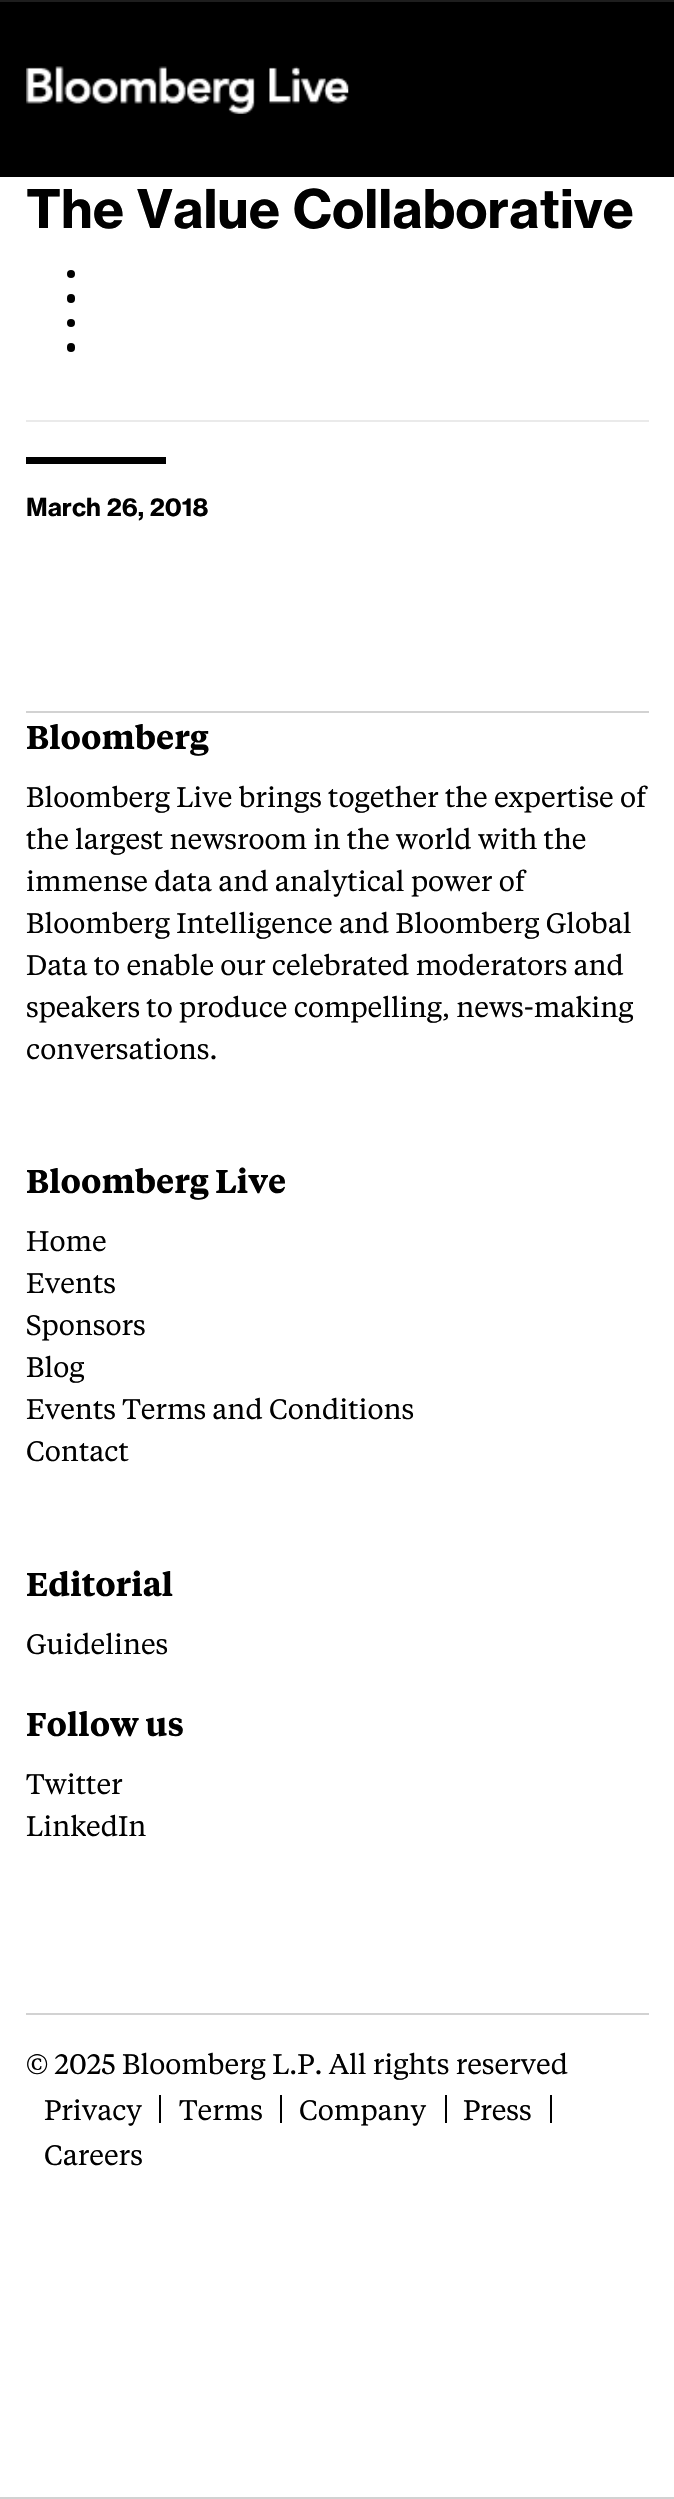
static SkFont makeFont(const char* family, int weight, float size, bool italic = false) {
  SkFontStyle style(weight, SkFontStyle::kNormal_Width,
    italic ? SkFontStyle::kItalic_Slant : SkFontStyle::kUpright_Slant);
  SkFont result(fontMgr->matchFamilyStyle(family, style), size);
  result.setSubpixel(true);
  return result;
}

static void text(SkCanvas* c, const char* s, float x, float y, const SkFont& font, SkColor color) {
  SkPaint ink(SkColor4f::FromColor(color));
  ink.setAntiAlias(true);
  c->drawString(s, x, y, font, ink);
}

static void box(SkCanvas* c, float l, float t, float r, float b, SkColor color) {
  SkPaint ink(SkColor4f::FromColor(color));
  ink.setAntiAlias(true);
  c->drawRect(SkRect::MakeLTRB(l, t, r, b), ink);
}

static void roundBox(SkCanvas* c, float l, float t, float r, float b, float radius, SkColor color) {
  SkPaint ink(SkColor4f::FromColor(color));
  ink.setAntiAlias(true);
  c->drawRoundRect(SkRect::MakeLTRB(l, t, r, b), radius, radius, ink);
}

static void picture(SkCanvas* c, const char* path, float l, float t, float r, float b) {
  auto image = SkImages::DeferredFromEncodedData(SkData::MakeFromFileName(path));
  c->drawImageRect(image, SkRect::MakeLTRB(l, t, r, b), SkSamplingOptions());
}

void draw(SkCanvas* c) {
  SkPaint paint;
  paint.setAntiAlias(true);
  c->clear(0xffffffff);
  box(c, 0, 0, 674, 2, 0xff1e1e1e);
  box(c, 0, 2, 674, 177, 0xff000000);
  picture(c, "img_01.png", 26, 66, 349, 114);
  box(c, 0, 2497, 674, 2499, 0xffd2d2d2);
  SkFont face1 = makeFont("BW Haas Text", 700, 52.5f);
  text(c, "The Value Collaborative", 26, 228, face1, 0xff000000);
  paint.setColor(0xff000000);
  c->drawCircle(71, 274, 4, paint);
  roundBox(c, 67, 294, 75, 303, 4, 0xff000000);
  c->drawCircle(71, 323, 4, paint);
  roundBox(c, 67, 343, 75, 352, 4, 0xff000000);
  box(c, 26, 420, 649, 422, 0xffeaeaea);
  box(c, 26, 457, 166, 464, 0xff000000);
  SkFont face2 = makeFont("BW Haas Text", 700, 24.5f);
  text(c, "March 26, 2018", 26, 516, face2, 0xff000000);
  box(c, 26, 711, 649, 713, 0xffd2d2d2);
  SkFont face3 = makeFont("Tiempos", 600, 32.75f);
  text(c, "Bloomberg", 26, 749, face3, 0xff000000);
  SkFont face4 = makeFont("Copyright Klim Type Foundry", 400, 28);
  text(c, "Bloomberg Live brings together the expertise of", 26, 807, face4, 0xff000000);
  text(c, "the largest newsroom in the world with the", 26, 849, face4, 0xff000000);
  text(c, "immense data and analytical power of", 26, 891, face4, 0xff000000);
  text(c, "Bloomberg Intelligence and Bloomberg Global", 26, 933, face4, 0xff000000);
  text(c, "Data to enable our celebrated moderators and", 26, 975, face4, 0xff000000);
  text(c, "speakers to produce compelling, news-making", 26, 1017, face4, 0xff000000);
  text(c, "conversations.", 26, 1059, face4, 0xff000000);
  text(c, "Bloomberg Live", 26, 1193, face3, 0xff000000);
  text(c, "Home", 26, 1251, face4, 0xff000000);
  text(c, "Events", 26, 1293, face4, 0xff000000);
  text(c, "Sponsors", 26, 1335, face4, 0xff000000);
  text(c, "Blog", 26, 1377, face4, 0xff000000);
  text(c, "Events Terms and Conditions", 26, 1419, face4, 0xff000000);
  text(c, "Contact", 26, 1461, face4, 0xff000000);
  text(c, "Editorial", 26, 1596, face3, 0xff000000);
  text(c, "Guidelines", 26, 1654, face4, 0xff000000);
  text(c, "Follow us", 26, 1736, face3, 0xff000000);
  text(c, "Twitter", 26, 1794, face4, 0xff000000);
  text(c, "LinkedIn", 26, 1836, face4, 0xff000000);
  box(c, 26, 2013, 649, 2015, 0xffd2d2d2);
  text(c, "© 2025 Bloomberg L.P. All rights reserved", 26, 2074, face4, 0xff000000);
  box(c, 159, 2095, 161, 2123, 0xff000000);
  text(c, "Privacy", 44, 2120, face4, 0xff000000);
  box(c, 280, 2095, 282, 2123, 0xff000000);
  text(c, "Terms", 179, 2120, face4, 0xff000000);
  box(c, 445, 2095, 447, 2123, 0xff000000);
  text(c, "Company", 299, 2120, face4, 0xff000000);
  box(c, 550, 2095, 552, 2123, 0xff000000);
  text(c, "Press", 463, 2120, face4, 0xff000000);
  text(c, "Careers", 44, 2165, face4, 0xff000000);
}
